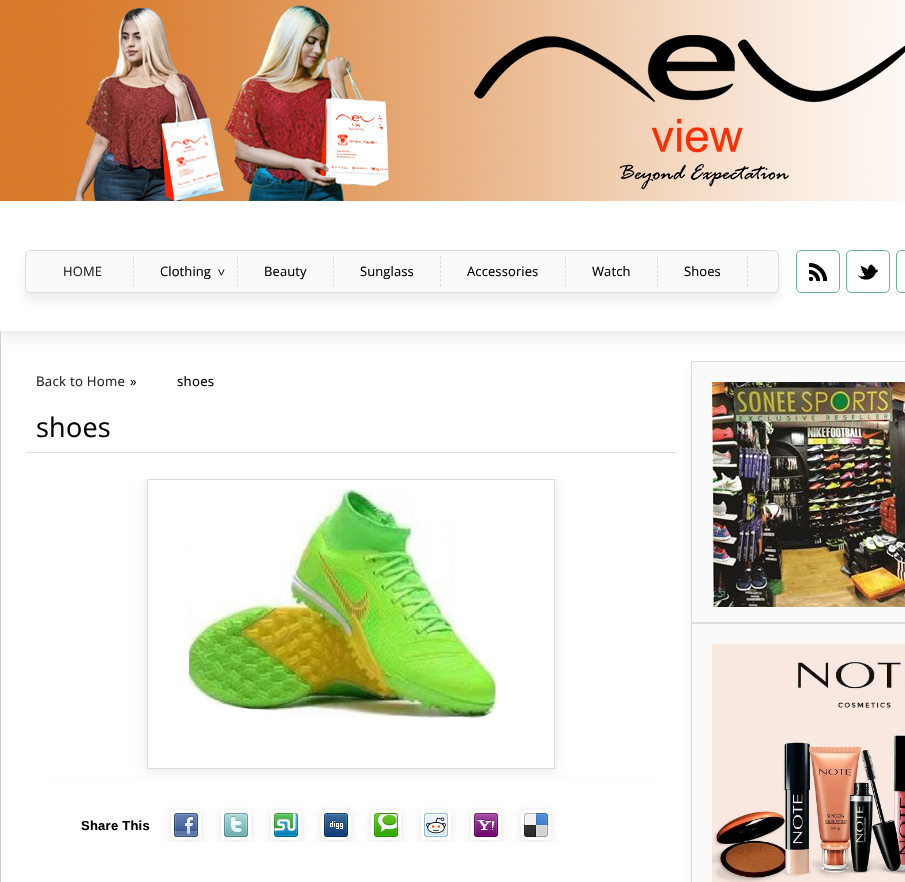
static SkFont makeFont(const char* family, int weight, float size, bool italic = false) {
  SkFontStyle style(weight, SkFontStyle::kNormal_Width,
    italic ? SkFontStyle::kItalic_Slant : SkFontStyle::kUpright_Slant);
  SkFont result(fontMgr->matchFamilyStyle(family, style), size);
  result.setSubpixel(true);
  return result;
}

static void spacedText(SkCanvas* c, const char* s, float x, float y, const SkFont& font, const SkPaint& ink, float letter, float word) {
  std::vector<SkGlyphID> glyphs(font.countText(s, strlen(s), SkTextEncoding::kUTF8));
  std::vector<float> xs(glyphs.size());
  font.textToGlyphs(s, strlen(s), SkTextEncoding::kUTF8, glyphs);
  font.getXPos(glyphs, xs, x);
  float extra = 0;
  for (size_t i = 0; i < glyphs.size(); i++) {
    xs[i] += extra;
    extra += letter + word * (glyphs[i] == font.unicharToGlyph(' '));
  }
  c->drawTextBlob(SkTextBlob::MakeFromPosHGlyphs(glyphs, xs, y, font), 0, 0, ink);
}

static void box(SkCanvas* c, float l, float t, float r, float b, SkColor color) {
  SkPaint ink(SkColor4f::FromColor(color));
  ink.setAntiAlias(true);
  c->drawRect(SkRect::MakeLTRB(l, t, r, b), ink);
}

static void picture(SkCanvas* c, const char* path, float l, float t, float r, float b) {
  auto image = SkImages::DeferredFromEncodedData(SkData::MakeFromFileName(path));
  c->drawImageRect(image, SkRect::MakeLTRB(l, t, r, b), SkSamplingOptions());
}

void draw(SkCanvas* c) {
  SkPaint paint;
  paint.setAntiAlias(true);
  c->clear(0xffffffff);
  box(c, 0, 331, 1, 882, 0xffc7d0d5);
  paint.setColor(0x80dddddd);
  paint.setMaskFilter(SkMaskFilter::MakeBlur(kNormal_SkBlurStyle, 5));
  c->drawRect(SkRect::MakeLTRB(0, 8, 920, 339), paint);
  paint.setMaskFilter(nullptr);
  box(c, 0, 201, 905, 331, 0xffffffff);
  picture(c, "img_01.png", 0, 0, 905, 201);
  paint.setMaskFilter(SkMaskFilter::MakeBlur(kNormal_SkBlurStyle, 5));
  c->drawRoundRect(SkRect::MakeLTRB(25, 258, 779, 301), 5, 5, paint);
  paint.setMaskFilter(nullptr);
  paint.setColor(0xfffafafa);
  c->drawRoundRect(SkRect::MakeLTRB(25.5f, 250.5f, 778.5f, 292.5f), 4.5f, 4.5f, paint);
  paint.setStyle(SkPaint::kStroke_Style);
  paint.setStrokeWidth(1);
  paint.setColor(0xffdddddd);
  c->drawRoundRect(SkRect::MakeLTRB(25.5f, 250.5f, 778.5f, 292.5f), 4.5f, 4.5f, paint);
  paint.setPathEffect(SkDashPathEffect::Make({{3, 1.67f}}, 0));
  c->drawPath(SkPathBuilder().moveTo(133.5f, 256).lineTo(133.5f, 287).detach(), paint);
  paint.setPathEffect(nullptr);
  SkFont face1 = makeFont("Open Sans", 400, 13);
  paint.setStyle(SkPaint::kFill_Style);
  paint.setColor(0xff222222);
  spacedText(c, "HOME", 63, 276, face1, paint, 0.1f, 0);
  paint.setStyle(SkPaint::kStroke_Style);
  paint.setColor(0xffdddddd);
  paint.setPathEffect(SkDashPathEffect::Make({{3, 1.67f}}, 0));
  c->drawPath(SkPathBuilder().moveTo(237.5f, 256).lineTo(237.5f, 287).detach(), paint);
  paint.setPathEffect(nullptr);
  paint.setStyle(SkPaint::kFill_Style);
  paint.setColor(0xff000000);
  spacedText(c, "Clothing", 160, 276, face1, paint, 0.1f, 0);
  c->save();
  c->rotate(180, 225, 266);
  spacedText(c, "^", 225, 266, face1, paint, 0.1f, 0);
  c->restore();
  paint.setStyle(SkPaint::kStroke_Style);
  paint.setColor(0xffdddddd);
  paint.setPathEffect(SkDashPathEffect::Make({{3, 1.67f}}, 0));
  c->drawPath(SkPathBuilder().moveTo(333.5f, 256).lineTo(333.5f, 287).detach(), paint);
  paint.setPathEffect(nullptr);
  paint.setStyle(SkPaint::kFill_Style);
  paint.setColor(0xff000000);
  spacedText(c, "Beauty", 264, 276, face1, paint, 0.1f, 0);
  paint.setStyle(SkPaint::kStroke_Style);
  paint.setColor(0xffdddddd);
  paint.setPathEffect(SkDashPathEffect::Make({{3, 1.67f}}, 0));
  c->drawPath(SkPathBuilder().moveTo(440.5f, 256).lineTo(440.5f, 287).detach(), paint);
  paint.setPathEffect(nullptr);
  paint.setStyle(SkPaint::kFill_Style);
  paint.setColor(0xff000000);
  spacedText(c, "Sunglass", 360, 276, face1, paint, 0.1f, 0);
  paint.setStyle(SkPaint::kStroke_Style);
  paint.setColor(0xffdddddd);
  paint.setPathEffect(SkDashPathEffect::Make({{3, 1.67f}}, 0));
  c->drawPath(SkPathBuilder().moveTo(565.5f, 256).lineTo(565.5f, 287).detach(), paint);
  paint.setPathEffect(nullptr);
  paint.setStyle(SkPaint::kFill_Style);
  paint.setColor(0xff000000);
  spacedText(c, "Accessories", 467, 276, face1, paint, 0.1f, 0);
  paint.setStyle(SkPaint::kStroke_Style);
  paint.setColor(0xffdddddd);
  paint.setPathEffect(SkDashPathEffect::Make({{3, 1.67f}}, 0));
  c->drawPath(SkPathBuilder().moveTo(657.5f, 256).lineTo(657.5f, 287).detach(), paint);
  paint.setPathEffect(nullptr);
  paint.setStyle(SkPaint::kFill_Style);
  paint.setColor(0xff000000);
  spacedText(c, "Watch", 592, 276, face1, paint, 0.1f, 0);
  paint.setStyle(SkPaint::kStroke_Style);
  paint.setColor(0xffdddddd);
  paint.setPathEffect(SkDashPathEffect::Make({{3, 1.67f}}, 0));
  c->drawPath(SkPathBuilder().moveTo(747.5f, 256).lineTo(747.5f, 287).detach(), paint);
  paint.setPathEffect(nullptr);
  paint.setStyle(SkPaint::kFill_Style);
  paint.setColor(0xff000000);
  spacedText(c, "Shoes", 684, 276, face1, paint, 0.1f, 0);
  picture(c, "img_02.png", 808, 263, 827, 281);
  paint.setStyle(SkPaint::kStroke_Style);
  paint.setColor(0xff6ab790);
  c->drawRoundRect(SkRect::MakeLTRB(796.5f, 250.5f, 839.5f, 292.5f), 4.5f, 4.5f, paint);
  picture(c, "img_03.png", 858, 264, 878, 280);
  c->drawRoundRect(SkRect::MakeLTRB(846.5f, 250.5f, 889.5f, 292.5f), 4.5f, 4.5f, paint);
  c->drawRoundRect(SkRect::MakeLTRB(896.5f, 250.5f, 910.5f, 292.5f), 4.5f, 4.5f, paint);
  SkFont face2 = makeFont("Open Sans", 400, 13.25f);
  paint.setStyle(SkPaint::kFill_Style);
  paint.setColor(0xff222222);
  spacedText(c, "Back to Home", 36, 386, face2, paint, 0.25f, 0);
  paint.setColor(0xff000000);
  spacedText(c, "»", 130, 386, face2, paint, 0.25f, 0);
  spacedText(c, "shoes", 177, 386, face2, paint, 0.25f, 0);
  SkFont face3 = makeFont("Open Sans", 400, 27);
  spacedText(c, "shoes", 36, 437, face3, paint, 0.25f, 0);
  box(c, 26, 452, 676, 453, 0xffdddddd);
  box(c, 46, 777, 656, 778, 0xfffafafa);
  c->save();
  c->clipRect(SkRect::MakeLTRB(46, 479, 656, 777));
  c->clipPath(SkPathBuilder(SkPathFillType::kEvenOdd).moveTo(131, 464).lineTo(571, 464).lineTo(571, 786).lineTo(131, 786).close().moveTo(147, 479).lineTo(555, 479).lineTo(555, 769).lineTo(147, 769).close().detach(), true);
  paint.setColor(0x1a000000);
  paint.setMaskFilter(SkMaskFilter::MakeBlur(kNormal_SkBlurStyle, 5));
  c->drawRect(SkRect::MakeLTRB(147, 480, 555, 770), paint);
  paint.setMaskFilter(nullptr);
  c->restore();
  paint.setStyle(SkPaint::kStroke_Style);
  paint.setColor(0xffdddddd);
  c->drawRect(SkRect::MakeLTRB(147.5f, 479.5f, 554.5f, 768.5f), paint);
  picture(c, "img_04.png", 188, 488, 498, 720);
  SkFont face4 = makeFont("Liberation Sans", 700, 13);
  paint.setStyle(SkPaint::kFill_Style);
  paint.setColor(0xff000000);
  spacedText(c, "Share This", 81, 830, face4, paint, 0.25f, 0);
  c->save();
  c->clipRect(SkRect::MakeLTRB(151, 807, 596, 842));
  c->clipPath(SkPathBuilder(SkPathFillType::kEvenOdd).moveTo(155, 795).lineTo(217, 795).lineTo(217, 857).lineTo(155, 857).close().moveTo(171, 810).lineTo(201, 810).lineTo(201, 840).lineTo(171, 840).close().detach(), true);
  paint.setColor(0x1a000000);
  paint.setMaskFilter(SkMaskFilter::MakeBlur(kNormal_SkBlurStyle, 5));
  c->drawRect(SkRect::MakeLTRB(171, 811, 201, 841), paint);
  paint.setMaskFilter(nullptr);
  c->restore();
  picture(c, "img_05.png", 174, 813, 198, 837);
  c->save();
  c->clipRect(SkRect::MakeLTRB(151, 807, 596, 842));
  c->clipPath(SkPathBuilder(SkPathFillType::kEvenOdd).moveTo(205, 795).lineTo(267, 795).lineTo(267, 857).lineTo(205, 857).close().moveTo(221, 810).lineTo(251, 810).lineTo(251, 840).lineTo(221, 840).close().detach(), true);
  paint.setMaskFilter(SkMaskFilter::MakeBlur(kNormal_SkBlurStyle, 5));
  c->drawRect(SkRect::MakeLTRB(221, 811, 251, 841), paint);
  paint.setMaskFilter(nullptr);
  c->restore();
  picture(c, "img_06.png", 224, 813, 248, 837);
  c->save();
  c->clipRect(SkRect::MakeLTRB(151, 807, 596, 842));
  c->clipPath(SkPathBuilder(SkPathFillType::kEvenOdd).moveTo(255, 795).lineTo(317, 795).lineTo(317, 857).lineTo(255, 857).close().moveTo(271, 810).lineTo(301, 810).lineTo(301, 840).lineTo(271, 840).close().detach(), true);
  paint.setMaskFilter(SkMaskFilter::MakeBlur(kNormal_SkBlurStyle, 5));
  c->drawRect(SkRect::MakeLTRB(271, 811, 301, 841), paint);
  paint.setMaskFilter(nullptr);
  c->restore();
  picture(c, "img_07.png", 274, 813, 298, 837);
  c->save();
  c->clipRect(SkRect::MakeLTRB(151, 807, 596, 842));
  c->clipPath(SkPathBuilder(SkPathFillType::kEvenOdd).moveTo(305, 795).lineTo(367, 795).lineTo(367, 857).lineTo(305, 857).close().moveTo(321, 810).lineTo(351, 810).lineTo(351, 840).lineTo(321, 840).close().detach(), true);
  paint.setMaskFilter(SkMaskFilter::MakeBlur(kNormal_SkBlurStyle, 5));
  c->drawRect(SkRect::MakeLTRB(321, 811, 351, 841), paint);
  paint.setMaskFilter(nullptr);
  c->restore();
  picture(c, "img_08.png", 324, 813, 348, 837);
  c->save();
  c->clipRect(SkRect::MakeLTRB(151, 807, 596, 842));
  c->clipPath(SkPathBuilder(SkPathFillType::kEvenOdd).moveTo(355, 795).lineTo(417, 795).lineTo(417, 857).lineTo(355, 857).close().moveTo(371, 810).lineTo(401, 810).lineTo(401, 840).lineTo(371, 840).close().detach(), true);
  paint.setMaskFilter(SkMaskFilter::MakeBlur(kNormal_SkBlurStyle, 5));
  c->drawRect(SkRect::MakeLTRB(371, 811, 401, 841), paint);
  paint.setMaskFilter(nullptr);
  c->restore();
  picture(c, "img_09.png", 374, 813, 398, 837);
  c->save();
  c->clipRect(SkRect::MakeLTRB(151, 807, 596, 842));
  c->clipPath(SkPathBuilder(SkPathFillType::kEvenOdd).moveTo(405, 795).lineTo(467, 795).lineTo(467, 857).lineTo(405, 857).close().moveTo(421, 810).lineTo(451, 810).lineTo(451, 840).lineTo(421, 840).close().detach(), true);
  paint.setMaskFilter(SkMaskFilter::MakeBlur(kNormal_SkBlurStyle, 5));
  c->drawRect(SkRect::MakeLTRB(421, 811, 451, 841), paint);
  paint.setMaskFilter(nullptr);
  c->restore();
  picture(c, "img_10.png", 424, 813, 448, 837);
  c->save();
  c->clipRect(SkRect::MakeLTRB(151, 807, 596, 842));
  c->clipPath(SkPathBuilder(SkPathFillType::kEvenOdd).moveTo(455, 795).lineTo(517, 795).lineTo(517, 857).lineTo(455, 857).close().moveTo(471, 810).lineTo(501, 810).lineTo(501, 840).lineTo(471, 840).close().detach(), true);
  paint.setMaskFilter(SkMaskFilter::MakeBlur(kNormal_SkBlurStyle, 5));
  c->drawRect(SkRect::MakeLTRB(471, 811, 501, 841), paint);
  paint.setMaskFilter(nullptr);
  c->restore();
  picture(c, "img_11.png", 474, 813, 498, 837);
  c->save();
  c->clipRect(SkRect::MakeLTRB(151, 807, 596, 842));
  c->clipPath(SkPathBuilder(SkPathFillType::kEvenOdd).moveTo(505, 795).lineTo(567, 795).lineTo(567, 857).lineTo(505, 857).close().moveTo(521, 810).lineTo(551, 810).lineTo(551, 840).lineTo(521, 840).close().detach(), true);
  paint.setMaskFilter(SkMaskFilter::MakeBlur(kNormal_SkBlurStyle, 5));
  c->drawRect(SkRect::MakeLTRB(521, 811, 551, 841), paint);
  paint.setMaskFilter(nullptr);
  c->restore();
  picture(c, "img_12.png", 524, 813, 548, 837);
  paint.setColor(0x80dddddd);
  paint.setMaskFilter(SkMaskFilter::MakeBlur(kNormal_SkBlurStyle, 5));
  c->drawRect(SkRect::MakeLTRB(691, 369, 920, 631), paint);
  paint.setMaskFilter(nullptr);
  paint.setColor(0xfffafafa);
  c->drawRect(SkRect::MakeLTRB(691.5f, 361.5f, 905.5f, 622.5f), paint);
  paint.setStyle(SkPaint::kStroke_Style);
  paint.setColor(0xffdddddd);
  c->drawRect(SkRect::MakeLTRB(691.5f, 361.5f, 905.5f, 622.5f), paint);
  picture(c, "img_13.png", 712, 382, 905, 607);
  paint.setStyle(SkPaint::kFill_Style);
  paint.setColor(0x80dddddd);
  paint.setMaskFilter(SkMaskFilter::MakeBlur(kNormal_SkBlurStyle, 5));
  c->drawRect(SkRect::MakeLTRB(691, 631, 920, 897), paint);
  paint.setMaskFilter(nullptr);
  paint.setColor(0xfffafafa);
  c->drawRect(SkRect::MakeLTRB(691.5f, 623.5f, 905.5f, 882.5f), paint);
  paint.setStyle(SkPaint::kStroke_Style);
  paint.setColor(0xffdddddd);
  c->drawRect(SkRect::MakeLTRB(691.5f, 623.5f, 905.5f, 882.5f), paint);
  picture(c, "img_14.png", 712, 644, 905, 882);
}
